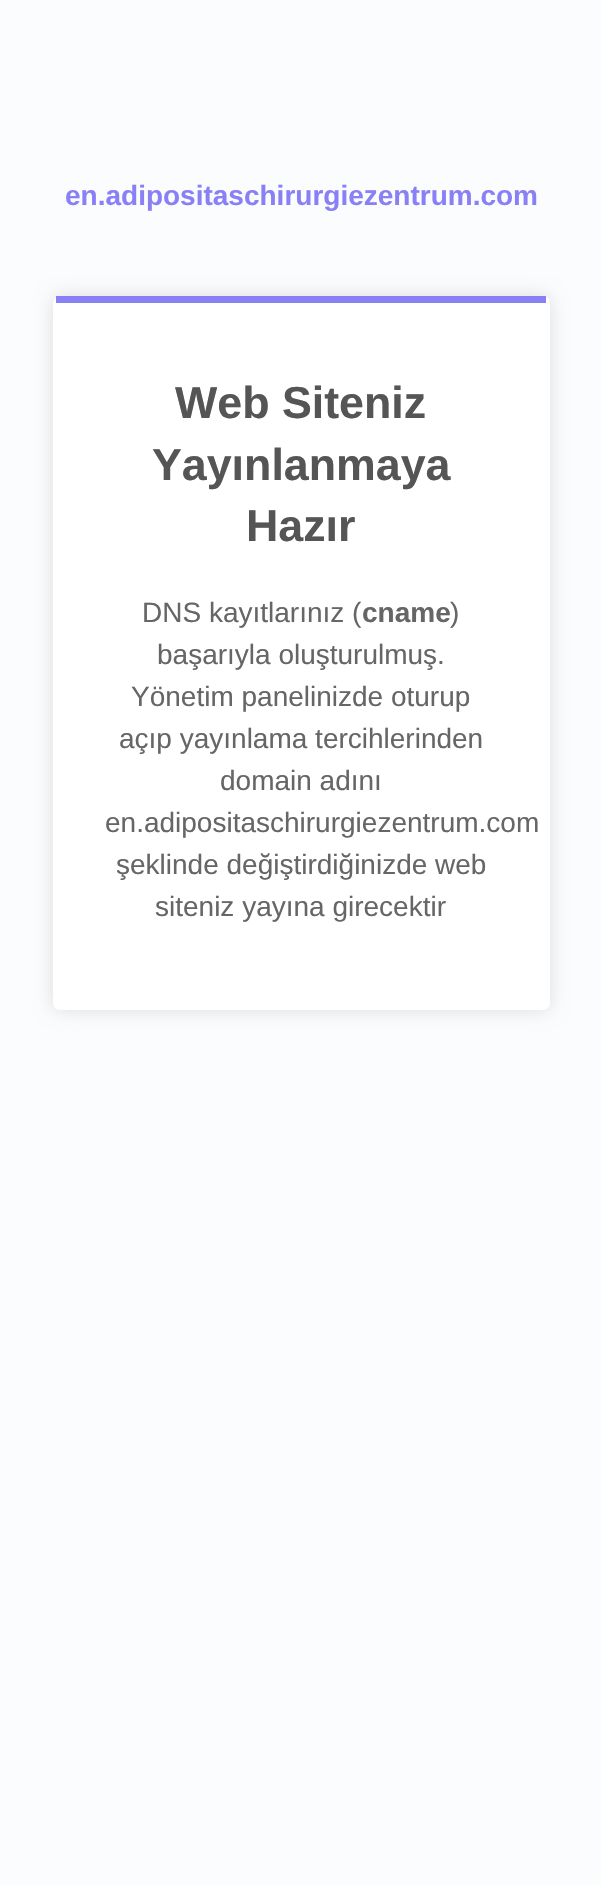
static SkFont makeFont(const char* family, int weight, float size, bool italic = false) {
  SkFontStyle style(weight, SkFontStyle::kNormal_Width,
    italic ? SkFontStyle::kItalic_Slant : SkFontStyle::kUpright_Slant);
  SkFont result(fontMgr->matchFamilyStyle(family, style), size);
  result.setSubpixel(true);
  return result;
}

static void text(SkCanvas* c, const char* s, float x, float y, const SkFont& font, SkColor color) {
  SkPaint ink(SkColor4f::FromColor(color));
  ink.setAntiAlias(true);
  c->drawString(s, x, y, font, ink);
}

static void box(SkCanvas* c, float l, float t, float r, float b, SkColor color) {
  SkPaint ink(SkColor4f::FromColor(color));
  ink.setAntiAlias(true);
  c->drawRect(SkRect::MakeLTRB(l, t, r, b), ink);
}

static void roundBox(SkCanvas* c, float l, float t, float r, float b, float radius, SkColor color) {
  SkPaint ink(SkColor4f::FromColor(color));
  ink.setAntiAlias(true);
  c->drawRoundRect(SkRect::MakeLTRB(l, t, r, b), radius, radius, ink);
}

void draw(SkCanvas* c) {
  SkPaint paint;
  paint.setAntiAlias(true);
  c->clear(0xfffafcfd);
  SkFont face1 = makeFont("Liberation Sans", 700, 28);
  text(c, "en.adipositaschirurgiezentrum.com", 65, 205, face1, 0xff8a80f6);
  paint.setColor(0x1f000000);
  paint.setMaskFilter(SkMaskFilter::MakeBlur(kNormal_SkBlurStyle, 9));
  c->drawRoundRect(SkRect::MakeLTRB(53, 296, 550, 1010), 7, 7, paint);
  paint.setMaskFilter(nullptr);
  roundBox(c, 53, 296, 550, 1010, 7, 0xffffffff);
  box(c, 56, 296, 546, 303, 0xff8a80f6);
  SkFont face2 = makeFont("Liberation Sans", 700, 44.75f);
  text(c, "Web Siteniz", 175, 418, face2, 0xff555555);
  text(c, "Yayınlanmaya", 152, 480, face2, 0xff555555);
  text(c, "Hazır", 246, 541, face2, 0xff555555);
  SkFont face3 = makeFont("Liberation Sans", 400, 28);
  text(c, "DNS kayıtlarınız (", 142, 622, face3, 0xff666666);
  text(c, "cname", 362, 622, face1, 0xff666666);
  text(c, ")", 450, 622, face3, 0xff666666);
  text(c, "başarıyla oluşturulmuş.", 157, 664, face3, 0xff666666);
  text(c, "Yönetim panelinizde oturup", 131, 706, face3, 0xff666666);
  text(c, "açıp yayınlama tercihlerinden", 119, 748, face3, 0xff666666);
  text(c, "domain adını", 220, 790, face3, 0xff666666);
  text(c, "en.adipositaschirurgiezentrum.com", 105, 832, face3, 0xff666666);
  text(c, "şeklinde değiştirdiğinizde web", 116, 874, face3, 0xff666666);
  text(c, "siteniz yayına girecektir", 155, 916, face3, 0xff666666);
}
